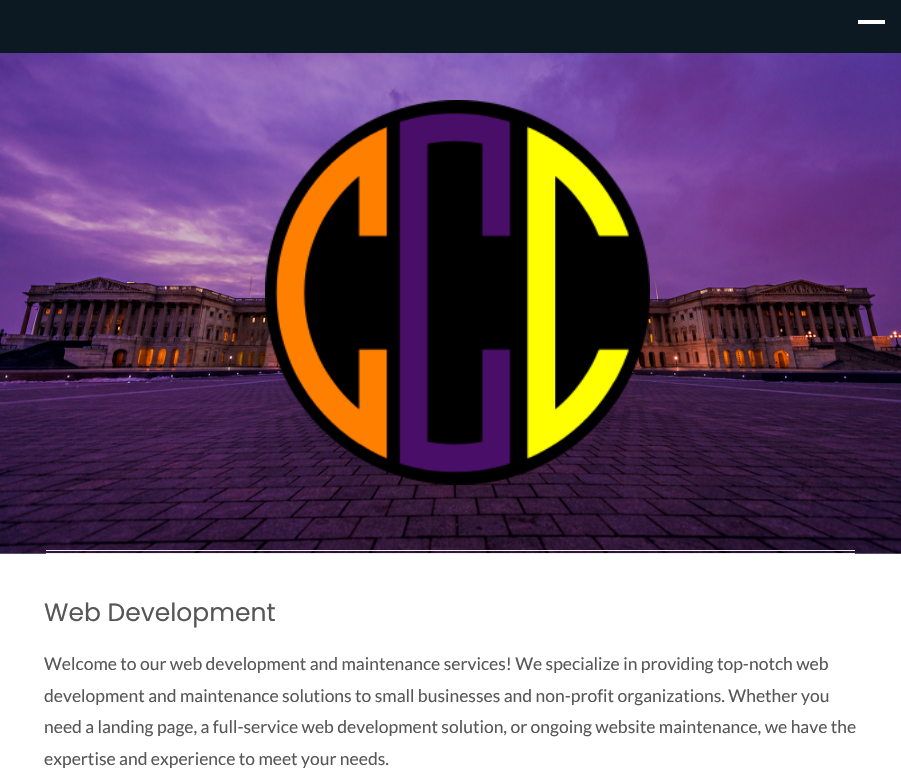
static SkFont makeFont(const char* family, int weight, float size, bool italic = false) {
  SkFontStyle style(weight, SkFontStyle::kNormal_Width,
    italic ? SkFontStyle::kItalic_Slant : SkFontStyle::kUpright_Slant);
  SkFont result(fontMgr->matchFamilyStyle(family, style), size);
  result.setSubpixel(true);
  return result;
}

static void text(SkCanvas* c, const char* s, float x, float y, const SkFont& font, SkColor color) {
  SkPaint ink(SkColor4f::FromColor(color));
  ink.setAntiAlias(true);
  c->drawString(s, x, y, font, ink);
}

static void box(SkCanvas* c, float l, float t, float r, float b, SkColor color) {
  SkPaint ink(SkColor4f::FromColor(color));
  ink.setAntiAlias(true);
  c->drawRect(SkRect::MakeLTRB(l, t, r, b), ink);
}

static void picture(SkCanvas* c, const char* path, float l, float t, float r, float b) {
  auto image = SkImages::DeferredFromEncodedData(SkData::MakeFromFileName(path));
  c->drawImageRect(image, SkRect::MakeLTRB(l, t, r, b), SkSamplingOptions());
}

void draw(SkCanvas* c) {
  SkPaint paint;
  paint.setAntiAlias(true);
  c->clear(0xffffffff);
  box(c, 0, 0, 901, 53, 0xff0c1923);
  box(c, 858, 20, 885, 24, 0xffffffff);
  picture(c, "img_01.png", 0, 53, 901, 554);
  picture(c, "img_02.png", 265, 100, 650, 485);
  box(c, 46, 550, 855, 551, 0xffeeeeee);
  box(c, 46, 553, 855, 554, 0xffeeeeee);
  SkFont face1 = makeFont("Poppins", 400, 25);
  text(c, "Web Development", 44, 621, face1, 0xff585656);
  SkFont face2 = makeFont("Lato", 400, 17.5f);
  text(c, "Welcome to our web development and maintenance services! We specialize in providing top-notch web", 44, 670, face2, 0xff585656);
  text(c, "development and maintenance solutions to small businesses and non-profit organizations. Whether you", 44, 702, face2, 0xff585656);
  text(c, "need a landing page, a full-service web development solution, or ongoing website maintenance, we have the", 44, 733, face2, 0xff585656);
  text(c, "expertise and experience to meet your needs.", 44, 765, face2, 0xff585656);
}
